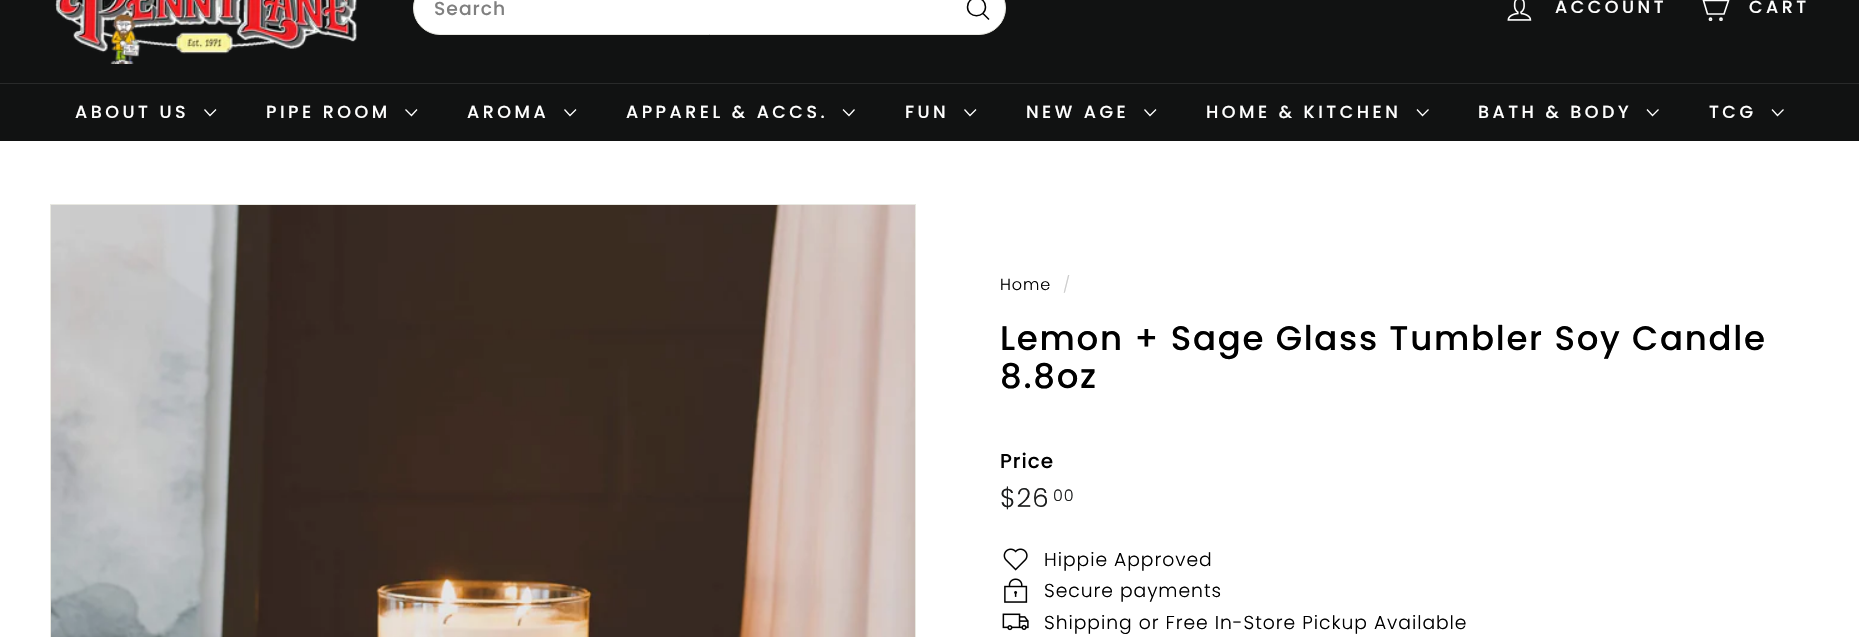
static SkFont makeFont(const char* family, int weight, float size, bool italic = false) {
  SkFontStyle style(weight, SkFontStyle::kNormal_Width,
    italic ? SkFontStyle::kItalic_Slant : SkFontStyle::kUpright_Slant);
  SkFont result(fontMgr->matchFamilyStyle(family, style), size);
  result.setSubpixel(true);
  return result;
}

static void spacedText(SkCanvas* c, const char* s, float x, float y, const SkFont& font, const SkPaint& ink, float letter, float word) {
  std::vector<SkGlyphID> glyphs(font.countText(s, strlen(s), SkTextEncoding::kUTF8));
  std::vector<float> xs(glyphs.size());
  font.textToGlyphs(s, strlen(s), SkTextEncoding::kUTF8, glyphs);
  font.getXPos(glyphs, xs, x);
  float extra = 0;
  for (size_t i = 0; i < glyphs.size(); i++) {
    xs[i] += extra;
    extra += letter + word * (glyphs[i] == font.unicharToGlyph(' '));
  }
  c->drawTextBlob(SkTextBlob::MakeFromPosHGlyphs(glyphs, xs, y, font), 0, 0, ink);
}

static void box(SkCanvas* c, float l, float t, float r, float b, SkColor color) {
  SkPaint ink(SkColor4f::FromColor(color));
  ink.setAntiAlias(true);
  c->drawRect(SkRect::MakeLTRB(l, t, r, b), ink);
}

static void picture(SkCanvas* c, const char* path, float l, float t, float r, float b) {
  auto image = SkImages::DeferredFromEncodedData(SkData::MakeFromFileName(path));
  c->drawImageRect(image, SkRect::MakeLTRB(l, t, r, b), SkSamplingOptions());
}

void draw(SkCanvas* c) {
  SkPaint paint;
  paint.setAntiAlias(true);
  c->clear(0xffffffff);
  box(c, 0, 0, 1859, 83, 0xff111212);
  picture(c, "img_01.png", 55, 0, 357, 64);
  paint.setColor(0xffffffff);
  c->drawRoundRect(SkRect::MakeLTRB(413.5f, -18.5f, 1005.5f, 34.5f), 26.5f, 26.5f, paint);
  paint.setStyle(SkPaint::kStroke_Style);
  paint.setStrokeWidth(1);
  paint.setColor(0xffe8e8e1);
  c->drawRoundRect(SkRect::MakeLTRB(413.5f, -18.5f, 1005.5f, 34.5f), 26.5f, 26.5f, paint);
  SkFont face1 = makeFont("Poppins", 500, 18.75f);
  paint.setStyle(SkPaint::kFill_Style);
  paint.setColor(0xff808080);
  spacedText(c, "Search", 434, 15, face1, paint, 1, 0);
  paint.setStyle(SkPaint::kStroke_Style);
  paint.setStrokeWidth(1.5f);
  paint.setColor(0xff000000);
  c->drawPath(SkPathBuilder().moveTo(985.5f, 7).cubicTo(985.5f, 18.5f, 967.5f, 18.5f, 967.5f, 7).cubicTo(967.5f, -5, 985.5f, -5, 985.5f, 7).moveTo(989, 19.5f).lineTo(983, 13.5f).detach(), paint);
  picture(c, "img_02.png", 1507, 0, 1532, 21);
  SkFont face2 = makeFont("Poppins", 500, 17.5f);
  paint.setStyle(SkPaint::kFill_Style);
  paint.setColor(0xffffffff);
  spacedText(c, "ACCOUNT", 1555, 13, face2, paint, 3.5f, 0);
  paint.setStyle(SkPaint::kStroke_Style);
  paint.setStrokeWidth(1.6f);
  c->drawPath(SkPathBuilder().moveTo(1703.5f, 0.5f).lineTo(1728.5f, 0.5f).lineTo(1724, 14).lineTo(1707.5f, 14).lineTo(1702, -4.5f).lineTo(1698, -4.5f).detach(), paint);
  c->drawCircle(1710.5f, 19.2f, 1.1f, paint);
  c->drawCircle(1721, 19.2f, 1.1f, paint);
  paint.setStyle(SkPaint::kFill_Style);
  spacedText(c, "CART", 1749, 13, face2, paint, 3.5f, 0);
  box(c, 0, 84, 1859, 141, 0xff111212);
  box(c, 0, 83, 1859, 84, 0xff292a2a);
  spacedText(c, "ABOUT US", 75, 118, face2, paint, 3.5f, 0);
  paint.setStyle(SkPaint::kStroke_Style);
  paint.setStrokeWidth(1.3f);
  c->drawPath(SkPathBuilder().moveTo(204.5f, 109.5f).lineTo(210, 115.5f).lineTo(216, 109.5f).detach(), paint);
  paint.setStyle(SkPaint::kFill_Style);
  spacedText(c, "PIPE ROOM", 266, 118, face2, paint, 3.5f, 0);
  paint.setStyle(SkPaint::kStroke_Style);
  c->drawPath(SkPathBuilder().moveTo(405.5f, 109.5f).lineTo(411.5f, 115.5f).lineTo(417, 109.5f).detach(), paint);
  paint.setStyle(SkPaint::kFill_Style);
  spacedText(c, "AROMA", 467, 118, face2, paint, 3.5f, 0);
  paint.setStyle(SkPaint::kStroke_Style);
  c->drawPath(SkPathBuilder().moveTo(564.5f, 109.5f).lineTo(570, 115.5f).lineTo(576, 109.5f).detach(), paint);
  paint.setStyle(SkPaint::kFill_Style);
  spacedText(c, "APPAREL & ACCS.", 626, 118, face2, paint, 3.5f, 0);
  paint.setStyle(SkPaint::kStroke_Style);
  c->drawPath(SkPathBuilder().moveTo(843, 109.5f).lineTo(849, 115.5f).lineTo(854.5f, 109.5f).detach(), paint);
  paint.setStyle(SkPaint::kFill_Style);
  spacedText(c, "FUN", 905, 118, face2, paint, 3.5f, 0);
  paint.setStyle(SkPaint::kStroke_Style);
  c->drawPath(SkPathBuilder().moveTo(964.5f, 109.5f).lineTo(970, 115.5f).lineTo(976, 109.5f).detach(), paint);
  paint.setStyle(SkPaint::kFill_Style);
  spacedText(c, "NEW AGE", 1026, 118, face2, paint, 3.5f, 0);
  paint.setStyle(SkPaint::kStroke_Style);
  c->drawPath(SkPathBuilder().moveTo(1144.5f, 109.5f).lineTo(1150, 115.5f).lineTo(1156, 109.5f).detach(), paint);
  paint.setStyle(SkPaint::kFill_Style);
  spacedText(c, "HOME & KITCHEN", 1206, 118, face2, paint, 3.5f, 0);
  paint.setStyle(SkPaint::kStroke_Style);
  c->drawPath(SkPathBuilder().moveTo(1417, 109.5f).lineTo(1422.5f, 115.5f).lineTo(1428.5f, 109.5f).detach(), paint);
  paint.setStyle(SkPaint::kFill_Style);
  spacedText(c, "BATH & BODY", 1478, 118, face2, paint, 3.5f, 0);
  paint.setStyle(SkPaint::kStroke_Style);
  c->drawPath(SkPathBuilder().moveTo(1647, 109.5f).lineTo(1652.5f, 115.5f).lineTo(1658.5f, 109.5f).detach(), paint);
  paint.setStyle(SkPaint::kFill_Style);
  spacedText(c, "TCG", 1709, 118, face2, paint, 3.5f, 0);
  paint.setStyle(SkPaint::kStroke_Style);
  c->drawPath(SkPathBuilder().moveTo(1772, 109.5f).lineTo(1777.5f, 115.5f).lineTo(1783.5f, 109.5f).detach(), paint);
  paint.setStrokeWidth(1);
  paint.setColor(0xffe8e8e1);
  c->drawRect(SkRect::MakeLTRB(50.5f, 204.5f, 915.5f, 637.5f), paint);
  picture(c, "img_03.png", 51, 205, 915, 637);
  SkFont face3 = makeFont("Poppins", 300, 16);
  paint.setStyle(SkPaint::kFill_Style);
  paint.setColor(0xff000000);
  spacedText(c, "Home", 1000, 290, face3, paint, 0.95f, 0);
  paint.setColor(0xffcccccc);
  spacedText(c, "/", 1063, 290, face3, paint, 0.95f, 0);
  SkFont face4 = makeFont("Poppins", 500, 34);
  paint.setColor(0xff000000);
  spacedText(c, "Lemon + Sage Glass Tumbler Soy Candle", 1000, 350, face4, paint, 1.7f, 0);
  spacedText(c, "8.8oz", 1000, 388, face4, paint, 1.7f, 0);
  SkFont face5 = makeFont("Poppins", 500, 20);
  spacedText(c, "Price", 1000, 468, face5, paint, 0.95f, 0);
  SkFont face6 = makeFont("Poppins", 300, 26);
  paint.setColor(0xff1c1d1d);
  spacedText(c, "$26", 1000, 507, face6, paint, 0.95f, 0);
  spacedText(c, "00", 1053, 501, face3, paint, 0.95f, 0);
  picture(c, "img_04.png", 1003, 548, 1028, 571);
  SkFont face7 = makeFont("Poppins", 300, 18.75f);
  paint.setColor(0xff000000);
  spacedText(c, "Hippie Approved", 1044, 566, face7, paint, 0.95f, 0);
  picture(c, "img_05.png", 1004, 578, 1028, 603);
  spacedText(c, "Secure payments", 1044, 597, face7, paint, 0.95f, 0);
  picture(c, "img_06.png", 1002, 613, 1029, 631);
  spacedText(c, "Shipping or Free In-Store Pickup Available", 1044, 629, face7, paint, 0.95f, 0);
}
